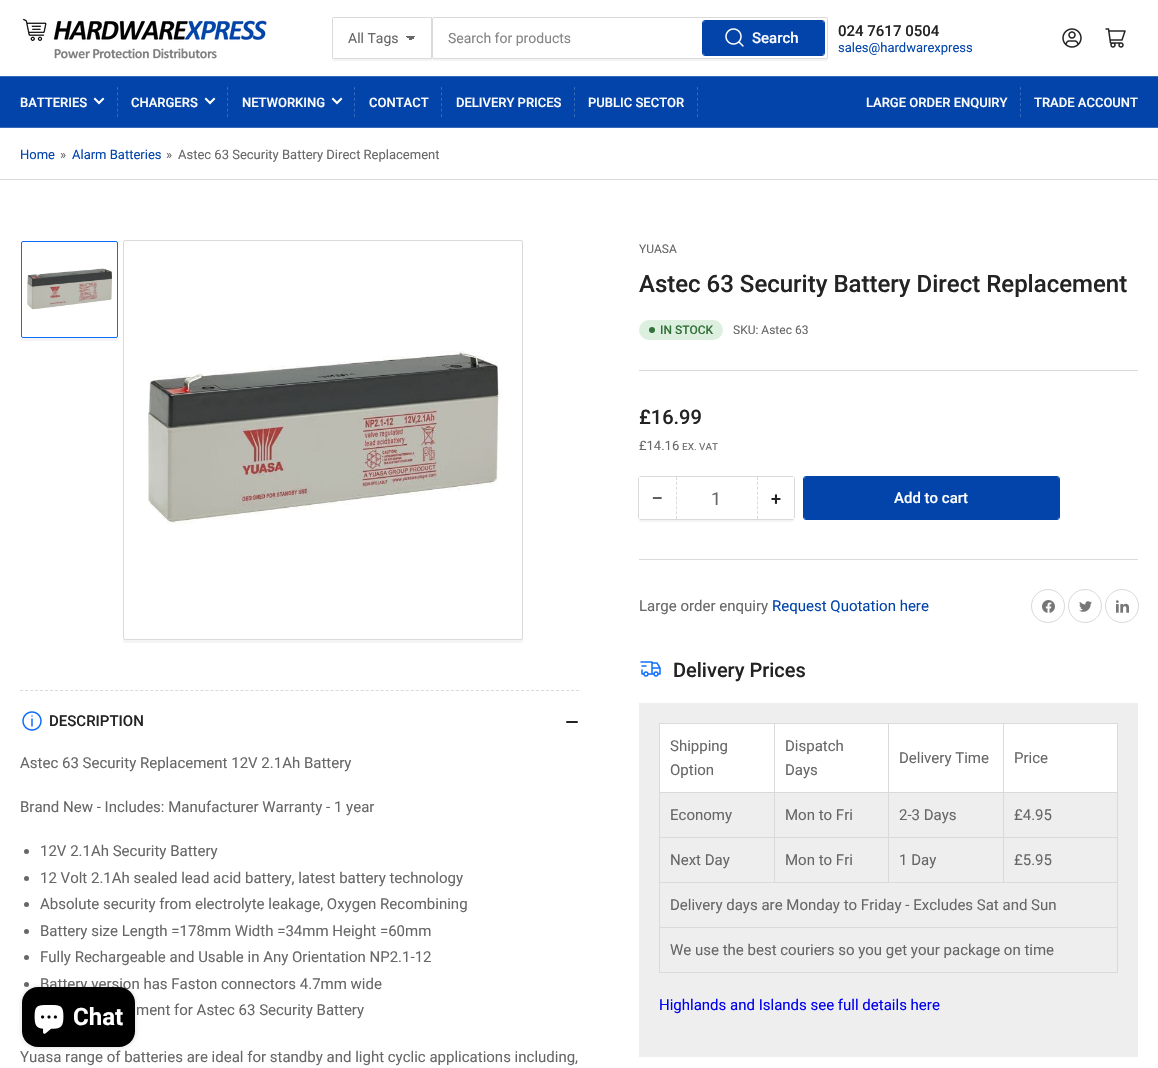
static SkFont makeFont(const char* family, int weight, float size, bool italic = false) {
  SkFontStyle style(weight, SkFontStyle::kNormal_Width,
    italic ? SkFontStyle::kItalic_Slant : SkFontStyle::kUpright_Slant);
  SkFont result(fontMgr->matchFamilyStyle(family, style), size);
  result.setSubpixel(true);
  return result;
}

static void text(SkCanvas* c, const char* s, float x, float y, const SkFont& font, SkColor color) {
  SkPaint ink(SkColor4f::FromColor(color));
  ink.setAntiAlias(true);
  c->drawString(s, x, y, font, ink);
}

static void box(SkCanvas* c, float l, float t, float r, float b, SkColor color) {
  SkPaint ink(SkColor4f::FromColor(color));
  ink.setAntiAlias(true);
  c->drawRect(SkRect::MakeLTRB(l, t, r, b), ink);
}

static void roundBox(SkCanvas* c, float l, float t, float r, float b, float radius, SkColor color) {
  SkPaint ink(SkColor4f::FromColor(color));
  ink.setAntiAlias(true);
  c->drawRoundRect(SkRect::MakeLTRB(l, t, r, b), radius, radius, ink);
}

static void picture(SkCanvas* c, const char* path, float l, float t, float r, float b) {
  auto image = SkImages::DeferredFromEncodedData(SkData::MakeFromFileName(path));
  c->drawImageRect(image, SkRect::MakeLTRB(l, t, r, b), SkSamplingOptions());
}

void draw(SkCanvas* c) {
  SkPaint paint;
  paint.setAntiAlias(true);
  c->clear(0xffffffff);
  picture(c, "img_01.png", 22, 18, 267, 59);
  paint.setStyle(SkPaint::kStroke_Style);
  paint.setStrokeWidth(1);
  paint.setColor(0xffdadada);
  c->drawRoundRect(SkRect::MakeLTRB(332.5f, 17.5f, 431.5f, 58.5f), 1.5f, 1.5f, paint);
  paint.setStyle(SkPaint::kFill_Style);
  paint.setColor(0x4ddadada);
  c->drawPath(SkPathBuilder().moveTo(332, 57).lineTo(332, 59).cubicTo(332, 60, 333, 61, 334, 61).lineTo(432, 61).lineTo(432, 59).lineTo(334, 59).cubicTo(333, 59, 332, 58, 332, 57).close().detach(), paint);
  paint.setColor(0xffffffff);
  c->drawPath(SkPathBuilder().moveTo(334, 17).lineTo(432, 17).lineTo(432, 59).lineTo(334, 59).cubicTo(333, 59, 332, 58, 332, 57).lineTo(332, 19).cubicTo(332, 18, 333, 17, 334, 17).close().detach(), paint);
  {
    const SkColor colors[] = {0xff676767, 0xffffffff};
    const float stops[] = {0.5f, 0.5f};
    const SkPoint ends[] = {{411, 36}, {416, 41}};
    paint.setShader(SkGradientShader::MakeLinear(ends, colors, stops, 2, SkTileMode::kClamp));
    paint.setAlpha(255);
  }
  c->drawRect(SkRect::MakeLTRB(411, 36, 416, 40), paint);
  {
    const SkColor colors[] = {0xffffffff, 0xff676767};
    const float stops[] = {0.5f, 0.5f};
    const SkPoint ends[] = {{406, 41}, {411, 36}};
    paint.setShader(SkGradientShader::MakeLinear(ends, colors, stops, 2, SkTileMode::kClamp));
    paint.setAlpha(255);
  }
  c->drawRect(SkRect::MakeLTRB(406, 36, 411, 40), paint);
  paint.setStyle(SkPaint::kStroke_Style);
  paint.setShader(nullptr);
  paint.setColor(0xffdadada);
  c->drawPath(SkPathBuilder().moveTo(334, 17.5f).lineTo(431.5f, 17.5f).lineTo(431.5f, 58.5f).lineTo(334, 58.5f).cubicTo(333, 58.5f, 332.5f, 58, 332.5f, 57).lineTo(332.5f, 19).cubicTo(332.5f, 18, 333, 17.5f, 334, 17.5f).close().detach(), paint);
  SkFont face1 = makeFont("Roboto", 400, 14);
  text(c, "All Tags", 348, 43, face1, 0xff676767);
  paint.setStyle(SkPaint::kFill_Style);
  paint.setColor(0xfff4f4f4);
  c->drawPath(SkPathBuilder().moveTo(432, 57).lineTo(432, 59).cubicTo(432, 60, 433, 61, 434, 61).lineTo(826, 61).cubicTo(827, 61, 828, 60, 828, 59).lineTo(828, 57).cubicTo(828, 58, 827, 59, 826, 59).lineTo(434, 59).cubicTo(433, 59, 432, 58, 432, 57).close().detach(), paint);
  paint.setStyle(SkPaint::kStroke_Style);
  paint.setColor(0xffdadada);
  c->drawRoundRect(SkRect::MakeLTRB(432.5f, 17.5f, 827.5f, 58.5f), 1.5f, 1.5f, paint);
  text(c, "Search for products", 448, 43, face1, 0xff858585);
  paint.setColor(0xff0244a9);
  c->drawRoundRect(SkRect::MakeLTRB(702.5f, 20.5f, 824.5f, 55.5f), 2.5f, 2.5f, paint);
  roundBox(c, 703, 21, 824, 55, 2, 0xff0244a9);
  picture(c, "img_02.png", 725, 28, 744, 47);
  SkFont face2 = makeFont("Roboto", 500, 15);
  text(c, "Search", 752, 43, face2, 0xffffffff);
  text(c, "024 7617 0504", 838, 36, face2, 0xff232323);
  SkFont face3 = makeFont("Roboto", 400, 13);
  text(c, "sales@hardwarexpress", 838, 52, face3, 0xff0244a9);
  picture(c, "img_03.png", 1062, 28, 1082, 48);
  picture(c, "img_04.png", 1105, 28, 1126, 48);
  box(c, 0, 77, 1158, 127, 0xff0244a9);
  box(c, 0, 76, 1158, 77, 0xff3569ba);
  box(c, 0, 127, 1158, 128, 0xff3569ba);
  SkFont face4 = makeFont("Roboto", 500, 13);
  text(c, "BATTERIES", 20, 107, face4, 0xffffffff);
  paint.setStrokeWidth(2);
  paint.setStrokeCap(SkPaint::kSquare_Cap);
  paint.setColor(0xffffffff);
  c->drawPath(SkPathBuilder().moveTo(103, 99).lineTo(99, 103).lineTo(95, 99).detach(), paint);
  paint.setStrokeWidth(1);
  paint.setStrokeCap(SkPaint::kButt_Cap);
  paint.setColor(0xff3569ba);
  paint.setPathEffect(SkDashPathEffect::Make({{3, 2.4f}}, 0));
  c->drawPath(SkPathBuilder().moveTo(117.5f, 87).lineTo(117.5f, 117).detach(), paint);
  paint.setPathEffect(nullptr);
  text(c, "CHARGERS", 131, 107, face4, 0xffffffff);
  paint.setStrokeWidth(2);
  paint.setStrokeCap(SkPaint::kSquare_Cap);
  paint.setColor(0xffffffff);
  c->drawPath(SkPathBuilder().moveTo(214, 99).lineTo(210, 103).lineTo(206, 99).detach(), paint);
  paint.setStrokeWidth(1);
  paint.setStrokeCap(SkPaint::kButt_Cap);
  paint.setColor(0xff3569ba);
  paint.setPathEffect(SkDashPathEffect::Make({{3, 2.4f}}, 0));
  c->drawPath(SkPathBuilder().moveTo(227.5f, 87).lineTo(227.5f, 117).detach(), paint);
  paint.setPathEffect(nullptr);
  text(c, "NETWORKING", 242, 107, face4, 0xffffffff);
  paint.setStrokeWidth(2);
  paint.setStrokeCap(SkPaint::kSquare_Cap);
  paint.setColor(0xffffffff);
  c->drawPath(SkPathBuilder().moveTo(341, 99).lineTo(337, 103).lineTo(333, 99).detach(), paint);
  paint.setStrokeWidth(1);
  paint.setStrokeCap(SkPaint::kButt_Cap);
  paint.setColor(0xff3569ba);
  paint.setPathEffect(SkDashPathEffect::Make({{3, 2.4f}}, 0));
  c->drawPath(SkPathBuilder().moveTo(354.5f, 87).lineTo(354.5f, 117).detach(), paint);
  paint.setPathEffect(nullptr);
  text(c, "CONTACT", 369, 107, face4, 0xffffffff);
  paint.setPathEffect(SkDashPathEffect::Make({{3, 2.4f}}, 0));
  c->drawPath(SkPathBuilder().moveTo(441.5f, 87).lineTo(441.5f, 117).detach(), paint);
  paint.setPathEffect(nullptr);
  text(c, "DELIVERY PRICES", 456, 107, face4, 0xffffffff);
  paint.setPathEffect(SkDashPathEffect::Make({{3, 2.4f}}, 0));
  c->drawPath(SkPathBuilder().moveTo(574.5f, 87).lineTo(574.5f, 117).detach(), paint);
  paint.setPathEffect(nullptr);
  text(c, "PUBLIC SECTOR", 588, 107, face4, 0xffffffff);
  paint.setPathEffect(SkDashPathEffect::Make({{3, 2.4f}}, 0));
  c->drawPath(SkPathBuilder().moveTo(697.5f, 87).lineTo(697.5f, 117).detach(), paint);
  paint.setPathEffect(nullptr);
  text(c, "LARGE ORDER ENQUIRY", 866, 107, face4, 0xffffffff);
  paint.setPathEffect(SkDashPathEffect::Make({{3, 2.4f}}, 0));
  c->drawPath(SkPathBuilder().moveTo(1020.5f, 87).lineTo(1020.5f, 117).detach(), paint);
  paint.setPathEffect(nullptr);
  text(c, "TRADE ACCOUNT", 1034, 107, face4, 0xffffffff);
  box(c, 0, 179, 1158, 180, 0xffdadada);
  text(c, "Home", 20, 159, face3, 0xff0244a9);
  text(c, "»", 60, 159, face3, 0xff676767);
  text(c, "Alarm Batteries", 72, 159, face3, 0xff0244a9);
  text(c, "»", 166, 159, face3, 0xff676767);
  text(c, "Astec 63 Security Battery Direct Replacement", 178, 159, face3, 0xff676767);
  paint.setStyle(SkPaint::kFill_Style);
  paint.setColor(0xfff4f4f4);
  c->drawPath(SkPathBuilder().moveTo(21, 336).lineTo(21, 339).cubicTo(21, 340, 22, 341, 23, 341).lineTo(116, 341).cubicTo(117, 341, 118, 340, 118, 339).lineTo(118, 336).cubicTo(118, 337, 117, 338, 116, 338).lineTo(23, 338).cubicTo(22, 338, 21, 337, 21, 336).close().detach(), paint);
  paint.setStyle(SkPaint::kStroke_Style);
  paint.setColor(0xff0b6cff);
  c->drawRoundRect(SkRect::MakeLTRB(21.5f, 241.5f, 117.5f, 337.5f), 1.5f, 1.5f, paint);
  picture(c, "img_05.png", 27, 268, 112, 310);
  paint.setStyle(SkPaint::kFill_Style);
  paint.setColor(0xfff4f4f4);
  c->drawPath(SkPathBuilder().moveTo(123, 638).lineTo(123, 641).cubicTo(123, 642, 124, 643, 125, 643).lineTo(521, 643).cubicTo(522, 643, 523, 642, 523, 641).lineTo(523, 638).cubicTo(523, 639, 522, 640, 521, 640).lineTo(125, 640).cubicTo(124, 640, 123, 639, 123, 638).close().detach(), paint);
  paint.setStyle(SkPaint::kStroke_Style);
  paint.setColor(0xffdadada);
  c->drawRoundRect(SkRect::MakeLTRB(123.5f, 240.5f, 522.5f, 639.5f), 1.5f, 1.5f, paint);
  picture(c, "img_06.png", 147, 351, 503, 524);
  box(c, 639, 370, 1138, 371, 0xffdadada);
  SkFont face5 = makeFont("Roboto", 400, 12);
  text(c, "YUASA", 639, 253, face5, 0xff676767);
  SkFont face6 = makeFont("Roboto", 500, 24);
  text(c, "Astec 63 Security Battery Direct Replacement", 639, 292, face6, 0xff232323);
  roundBox(c, 639, 320, 723, 340, 10, 0xffddf0df);
  paint.setStyle(SkPaint::kFill_Style);
  paint.setColor(0xff337239);
  c->drawCircle(652, 330, 3, paint);
  SkFont face7 = makeFont("Roboto", 500, 12);
  text(c, "IN STOCK", 660, 334, face7, 0xff337239);
  text(c, "SKU: Astec 63", 733, 334, face5, 0xff676767);
  SkFont face8 = makeFont("Roboto", 500, 20);
  text(c, "£16.99", 639, 424, face8, 0xff232323);
  text(c, "£14.16", 639, 450, face3, 0xff676767);
  SkFont face9 = makeFont("Roboto", 400, 10);
  text(c, "EX. VAT", 682, 450, face9, 0xff676767);
  paint.setColor(0xfff4f4f4);
  c->drawPath(SkPathBuilder().moveTo(639, 517).lineTo(639, 520).cubicTo(639, 521, 640, 522, 641, 522).lineTo(792, 522).cubicTo(793, 522, 794, 521, 794, 520).lineTo(794, 517).cubicTo(794, 518, 793, 519, 792, 519).lineTo(641, 519).cubicTo(640, 519, 639, 518, 639, 517).close().detach(), paint);
  paint.setStyle(SkPaint::kStroke_Style);
  paint.setColor(0xffdadada);
  c->drawRoundRect(SkRect::MakeLTRB(638.5f, 476.5f, 794.5f, 519.5f), 2.5f, 2.5f, paint);
  box(c, 639, 477, 641, 519, 0xffffffff);
  SkFont face10 = makeFont("Liberation Sans", 400, 18);
  text(c, "−", 652, 504, face10, 0xff232323);
  paint.setPathEffect(SkDashPathEffect::Make({{3, 1.88f}}, 0));
  c->drawPath(SkPathBuilder().moveTo(757.5f, 477).lineTo(757.5f, 519).detach(), paint);
  paint.setPathEffect(nullptr);
  paint.setPathEffect(SkDashPathEffect::Make({{3, 1.88f}}, 0));
  c->drawPath(SkPathBuilder().moveTo(676.5f, 477).lineTo(676.5f, 519).detach(), paint);
  paint.setPathEffect(nullptr);
  SkFont face11 = makeFont("Roboto", 400, 18);
  text(c, "1", 711, 505, face11, 0xff676767);
  box(c, 792, 477, 794, 519, 0xffffffff);
  SkFont face12 = makeFont("Roboto", 500, 18);
  text(c, "+", 771, 505, face12, 0xff232323);
  paint.setColor(0xff0244a9);
  c->drawRoundRect(SkRect::MakeLTRB(803.5f, 476.5f, 1059.5f, 519.5f), 2.5f, 2.5f, paint);
  roundBox(c, 804, 477, 1059, 519, 2, 0xff0244a9);
  text(c, "Add to cart", 894, 503, face2, 0xffffffff);
  box(c, 639, 559, 1138, 560, 0xffdadada);
  SkFont face13 = makeFont("Roboto", 400, 15);
  text(c, "Large order enquiry", 639, 611, face13, 0xff676767);
  text(c, "Request Quotation here", 772, 611, face13, 0xff0244a9);
  paint.setColor(0xffd9d9d9);
  c->drawCircle(1048, 606, 16.5f, paint);
  picture(c, "img_07.png", 1042, 600, 1055, 613);
  c->drawCircle(1085, 606, 16.5f, paint);
  picture(c, "img_08.png", 1079, 601, 1092, 612);
  c->drawCircle(1122, 606, 16.5f, paint);
  picture(c, "img_09.png", 1116, 600, 1129, 613);
  picture(c, "img_10.png", 640, 661, 661, 677);
  text(c, "Delivery Prices", 673, 677, face8, 0xff232323);
  box(c, 639, 703, 1138, 1057, 0xffeeeeee);
  box(c, 660, 724, 774, 792, 0xffffffff);
  box(c, 1003, 723, 1118, 724, 0xffdadada);
  box(c, 1003, 792, 1118, 793, 0xffdadada);
  box(c, 1003, 837, 1118, 838, 0xffdadada);
  box(c, 659, 882, 1118, 883, 0xffdadada);
  box(c, 1003, 837, 1004, 883, 0xffdadada);
  box(c, 888, 837, 1004, 838, 0xffdadada);
  box(c, 1003, 792, 1004, 838, 0xffdadada);
  box(c, 888, 792, 1004, 793, 0xffdadada);
  box(c, 1003, 723, 1004, 793, 0xffdadada);
  box(c, 888, 723, 1004, 724, 0xffdadada);
  box(c, 888, 837, 889, 883, 0xffdadada);
  box(c, 774, 837, 889, 838, 0xffdadada);
  box(c, 888, 792, 889, 838, 0xffdadada);
  box(c, 774, 792, 889, 793, 0xffdadada);
  box(c, 888, 723, 889, 793, 0xffdadada);
  box(c, 774, 723, 889, 724, 0xffdadada);
  box(c, 774, 837, 775, 883, 0xffdadada);
  box(c, 659, 837, 775, 838, 0xffdadada);
  box(c, 774, 792, 775, 838, 0xffdadada);
  box(c, 659, 792, 775, 793, 0xffdadada);
  box(c, 774, 723, 775, 793, 0xffdadada);
  box(c, 659, 723, 775, 724, 0xffdadada);
  box(c, 659, 927, 1118, 928, 0xffdadada);
  box(c, 1117, 927, 1118, 973, 0xffdadada);
  box(c, 659, 972, 1118, 973, 0xffdadada);
  box(c, 659, 927, 660, 973, 0xffdadada);
  box(c, 659, 882, 660, 928, 0xffdadada);
  box(c, 659, 837, 660, 883, 0xffdadada);
  box(c, 659, 792, 660, 838, 0xffdadada);
  box(c, 659, 723, 660, 793, 0xffdadada);
  text(c, "Shipping", 670, 751, face13, 0xff676767);
  text(c, "Option", 670, 775, face13, 0xff676767);
  box(c, 775, 724, 888, 792, 0xffffffff);
  text(c, "Dispatch", 785, 751, face13, 0xff676767);
  text(c, "Days", 785, 775, face13, 0xff676767);
  box(c, 889, 724, 1003, 792, 0xffffffff);
  text(c, "Delivery Time", 899, 763, face13, 0xff676767);
  box(c, 1004, 724, 1117, 792, 0xffffffff);
  box(c, 1117, 882, 1118, 928, 0xffdadada);
  box(c, 1117, 837, 1118, 883, 0xffdadada);
  box(c, 1117, 792, 1118, 838, 0xffdadada);
  box(c, 1117, 723, 1118, 793, 0xffdadada);
  text(c, "Price", 1014, 763, face13, 0xff676767);
  text(c, "Economy", 670, 820, face13, 0xff676767);
  text(c, "Mon to Fri", 785, 820, face13, 0xff676767);
  text(c, "2-3 Days", 899, 820, face13, 0xff676767);
  text(c, "£4.95", 1014, 820, face13, 0xff676767);
  text(c, "Next Day", 670, 865, face13, 0xff676767);
  text(c, "Mon to Fri", 785, 865, face13, 0xff676767);
  text(c, "1 Day", 899, 865, face13, 0xff676767);
  text(c, "£5.95", 1014, 865, face13, 0xff676767);
  text(c, "Delivery days are Monday to Friday - Excludes Sat and Sun", 670, 910, face13, 0xff676767);
  text(c, "We use the best couriers so you get your package on time", 670, 955, face13, 0xff676767);
  text(c, "Highlands and Islands see full details here", 659, 1010, face13, 0xff0000ee);
  paint.setColor(0xffdadada);
  paint.setPathEffect(SkDashPathEffect::Make({{3, 2.01f}}, 0));
  c->drawPath(SkPathBuilder().moveTo(20, 690.5f).lineTo(579, 690.5f).detach(), paint);
  paint.setPathEffect(nullptr);
  picture(c, "img_11.png", 22, 711, 42, 731);
  text(c, "DESCRIPTION", 49, 726, face2, 0xff232323);
  roundBox(c, 566, 721, 573, 723, 1, 0xff232323);
  roundBox(c, 570, 721, 578, 723, 1, 0xff232323);
  text(c, "Astec 63 Security Replacement 12V 2.1Ah Battery", 20, 768, face13, 0xff676767);
  text(c, "Brand New - Includes: Manufacturer Warranty - 1 year", 20, 812, face13, 0xff676767);
  paint.setStyle(SkPaint::kFill_Style);
  paint.setColor(0xff676767);
  c->drawCircle(26.5f, 851.5f, 2.5f, paint);
  text(c, "12V 2.1Ah Security Battery", 40, 856, face13, 0xff676767);
  c->drawCircle(26.5f, 878.5f, 2.5f, paint);
  text(c, "12 Volt 2.1Ah sealed lead acid battery, latest battery technology", 40, 883, face13, 0xff676767);
  c->drawCircle(26.5f, 904.5f, 2.5f, paint);
  text(c, "Absolute security from electrolyte leakage, Oxygen Recombining", 40, 909, face13, 0xff676767);
  c->drawCircle(26.5f, 931.5f, 2.5f, paint);
  text(c, "Battery size Length =178mm Width =34mm Height =60mm", 40, 936, face13, 0xff676767);
  c->drawCircle(26.5f, 957.5f, 2.5f, paint);
  text(c, "Fully Rechargeable and Usable in Any Orientation NP2.1-12", 40, 962, face13, 0xff676767);
  c->drawCircle(26.5f, 984.5f, 2.5f, paint);
  text(c, "Battery version has Faston connectors 4.7mm wide", 40, 989, face13, 0xff676767);
  text(c, "ment for Astec 63 Security Battery", 136, 1015, face13, 0xff676767);
  text(c, "Yuasa range of batteries are ideal for standby and light cyclic applications including,", 20, 1062, face13, 0xff676767);
  paint.setColor(0x26000000);
  paint.setMaskFilter(SkMaskFilter::MakeBlur(kNormal_SkBlurStyle, 2.5f));
  c->drawRoundRect(SkRect::MakeLTRB(22, 987, 135, 1047), 16, 16, paint);
  paint.setMaskFilter(nullptr);
  roundBox(c, 22, 987, 135, 1047, 16, 0xff000000);
  picture(c, "img_12.png", 34, 1005, 64, 1034);
  SkFont face14 = makeFont("Roboto", 700, 24);
  text(c, "Chat", 73, 1025, face14, 0xffffffff);
}
